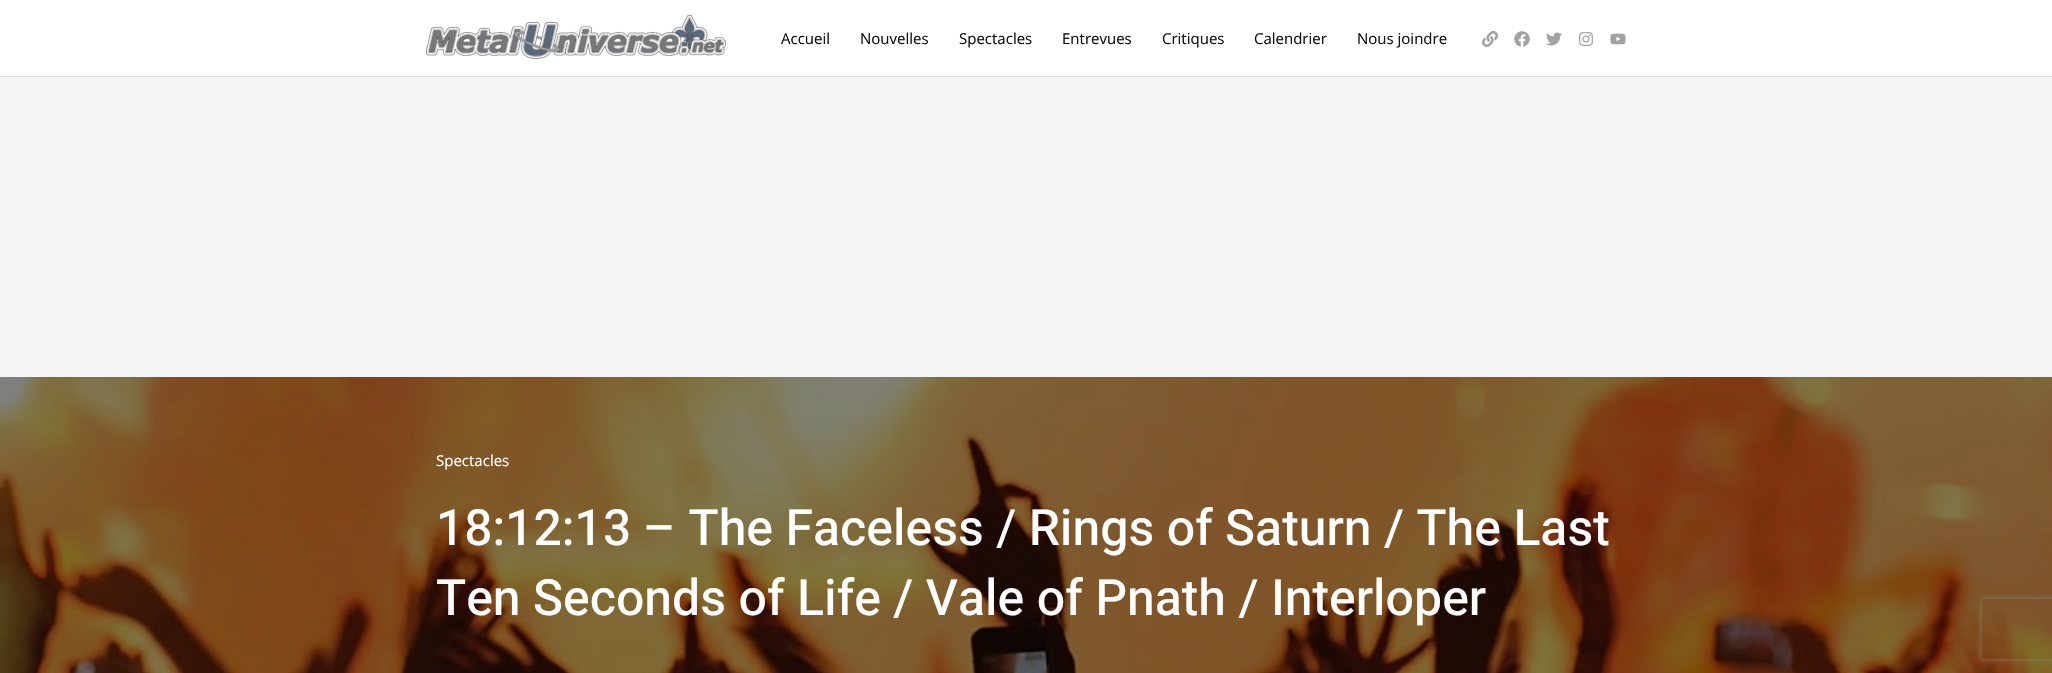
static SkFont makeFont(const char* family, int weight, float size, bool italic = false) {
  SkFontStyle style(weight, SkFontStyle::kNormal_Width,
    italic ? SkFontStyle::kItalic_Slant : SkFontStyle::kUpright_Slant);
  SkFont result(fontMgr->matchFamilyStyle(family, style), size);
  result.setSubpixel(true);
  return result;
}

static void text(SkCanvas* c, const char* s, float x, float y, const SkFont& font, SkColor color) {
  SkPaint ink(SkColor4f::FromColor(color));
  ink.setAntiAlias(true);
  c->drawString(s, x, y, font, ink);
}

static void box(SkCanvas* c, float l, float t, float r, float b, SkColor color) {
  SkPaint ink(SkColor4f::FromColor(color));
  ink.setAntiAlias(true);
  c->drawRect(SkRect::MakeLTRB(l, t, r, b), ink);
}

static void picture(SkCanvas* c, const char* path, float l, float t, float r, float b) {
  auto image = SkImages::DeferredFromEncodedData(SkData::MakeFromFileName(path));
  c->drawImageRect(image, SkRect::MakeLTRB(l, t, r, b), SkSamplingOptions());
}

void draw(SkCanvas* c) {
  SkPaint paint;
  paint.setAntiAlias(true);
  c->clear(0xfff5f5f5);
  box(c, 0, 0, 2052, 76, 0xffffffff);
  box(c, 0, 76, 2052, 77, 0xffdddddd);
  picture(c, "img_01.png", 426, 15, 726, 59);
  SkFont face1 = makeFont("Open Sans", 400, 15);
  text(c, "Accueil", 781, 44, face1, 0xff0f0f0f);
  text(c, "Nouvelles", 860, 44, face1, 0xff0f0f0f);
  text(c, "Spectacles", 959, 44, face1, 0xff0f0f0f);
  text(c, "Entrevues", 1062, 44, face1, 0xff0f0f0f);
  text(c, "Critiques", 1162, 44, face1, 0xff0f0f0f);
  text(c, "Calendrier", 1254, 44, face1, 0xff0f0f0f);
  text(c, "Nous joindre", 1357, 44, face1, 0xff0f0f0f);
  picture(c, "img_02.png", 1482, 31, 1498, 47);
  picture(c, "img_03.png", 1514, 31, 1530, 47);
  picture(c, "img_04.png", 1546, 32, 1562, 46);
  picture(c, "img_05.png", 1579, 32, 1593, 46);
  picture(c, "img_06.png", 1610, 33, 1626, 45);
  picture(c, "img_07.png", 0, 377, 2052, 673);
  text(c, "Spectacles", 436, 466, face1, 0xffffffff);
  SkFont face2 = makeFont("Heebo", 500, 50);
  text(c, "18:12:13 – The Faceless / Rings of Saturn / The Last", 436, 545, face2, 0xffffffff);
  text(c, "Ten Seconds of Life / Vale of Pnath / Interloper", 436, 615, face2, 0xffffffff);
  c->save();
  c->clipPath(SkPathBuilder(SkPathFillType::kEvenOdd).moveTo(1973, 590).lineTo(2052, 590).lineTo(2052, 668).lineTo(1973, 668).close().moveTo(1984, 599).lineTo(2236, 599).cubicTo(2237, 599, 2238, 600, 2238, 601).lineTo(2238, 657).cubicTo(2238, 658, 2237, 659, 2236, 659).lineTo(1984, 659).cubicTo(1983, 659, 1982, 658, 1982, 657).lineTo(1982, 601).cubicTo(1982, 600, 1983, 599, 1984, 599).close().detach(), true);
  paint.setColor(0xff808080);
  paint.setMaskFilter(SkMaskFilter::MakeBlur(kNormal_SkBlurStyle, 2.5f));
  c->drawRoundRect(SkRect::MakeLTRB(1982, 599, 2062, 659), 2, 2, paint);
  paint.setMaskFilter(nullptr);
  c->restore();
}
